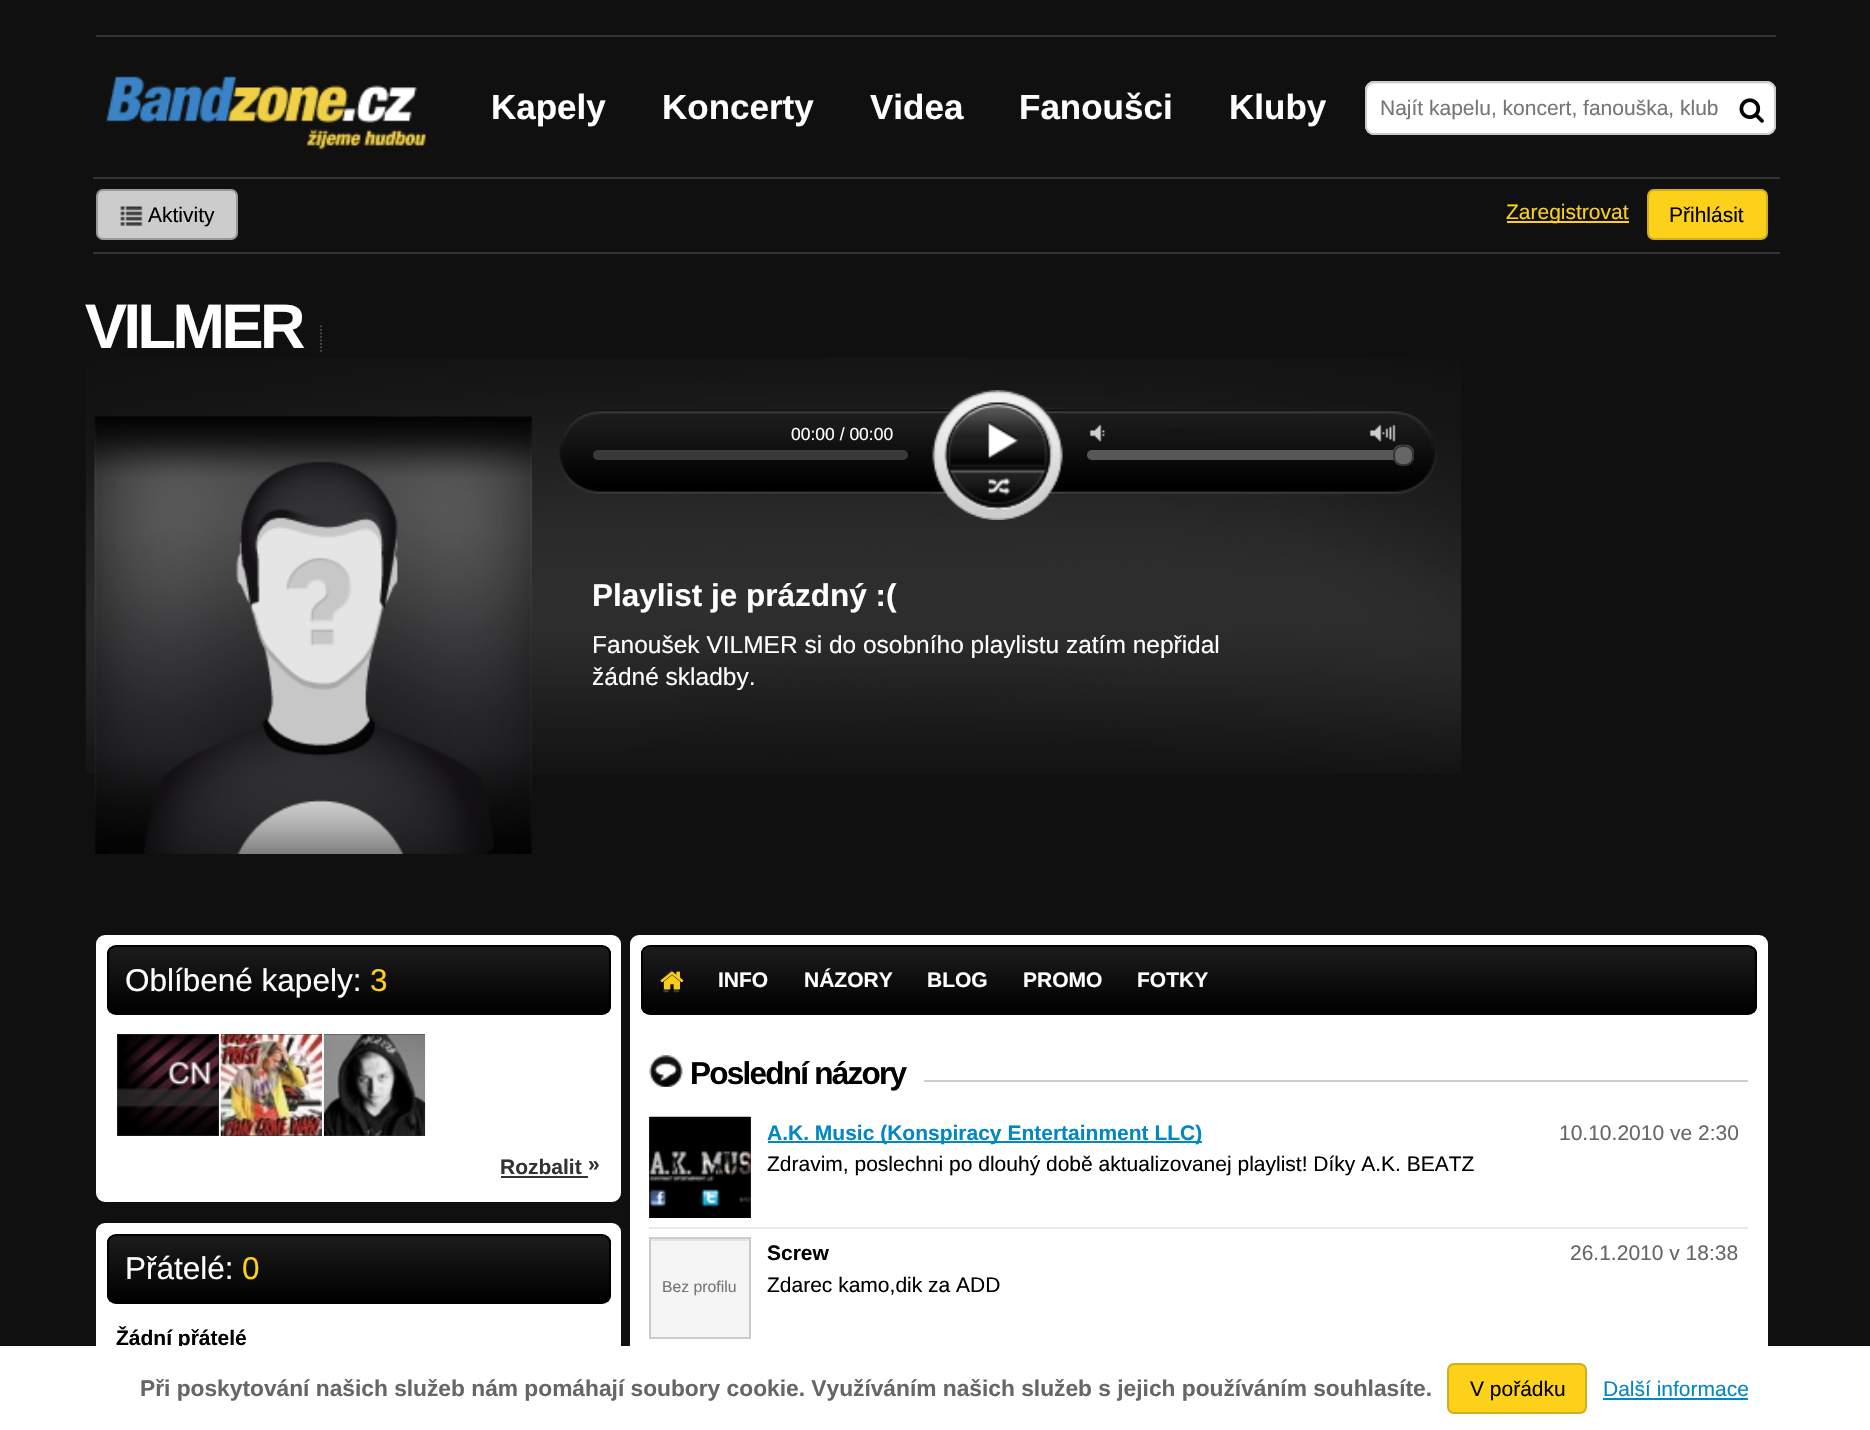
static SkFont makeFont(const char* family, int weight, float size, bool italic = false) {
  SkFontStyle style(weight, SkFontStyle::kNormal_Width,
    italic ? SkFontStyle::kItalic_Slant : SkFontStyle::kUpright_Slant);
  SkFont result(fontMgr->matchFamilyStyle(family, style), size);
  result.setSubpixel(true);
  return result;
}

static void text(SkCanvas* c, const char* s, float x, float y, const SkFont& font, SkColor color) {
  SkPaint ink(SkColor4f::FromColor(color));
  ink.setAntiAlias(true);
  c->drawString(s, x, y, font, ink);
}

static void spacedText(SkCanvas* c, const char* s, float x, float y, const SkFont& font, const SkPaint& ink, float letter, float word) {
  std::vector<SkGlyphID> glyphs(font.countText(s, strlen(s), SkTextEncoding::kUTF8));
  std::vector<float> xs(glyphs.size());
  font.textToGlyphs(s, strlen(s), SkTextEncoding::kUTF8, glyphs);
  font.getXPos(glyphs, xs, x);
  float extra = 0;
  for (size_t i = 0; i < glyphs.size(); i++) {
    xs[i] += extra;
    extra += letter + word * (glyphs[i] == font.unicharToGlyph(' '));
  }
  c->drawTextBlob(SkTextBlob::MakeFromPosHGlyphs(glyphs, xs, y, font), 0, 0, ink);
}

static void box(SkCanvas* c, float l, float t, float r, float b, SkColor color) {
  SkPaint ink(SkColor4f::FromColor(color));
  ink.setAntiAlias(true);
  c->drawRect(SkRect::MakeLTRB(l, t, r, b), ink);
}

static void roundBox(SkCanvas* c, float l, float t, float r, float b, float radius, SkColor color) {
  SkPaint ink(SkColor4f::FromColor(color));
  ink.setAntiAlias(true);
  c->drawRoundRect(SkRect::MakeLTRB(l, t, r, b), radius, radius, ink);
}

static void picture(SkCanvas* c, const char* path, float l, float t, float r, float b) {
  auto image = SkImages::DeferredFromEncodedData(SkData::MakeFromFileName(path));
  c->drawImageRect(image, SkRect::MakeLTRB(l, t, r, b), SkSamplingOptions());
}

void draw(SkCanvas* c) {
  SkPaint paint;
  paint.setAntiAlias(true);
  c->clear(0xff101010);
  box(c, 96, 35, 1776, 37, 0xff333333);
  picture(c, "img_01.png", 96, 71, 427, 150);
  SkFont face1 = makeFont("Liberation Sans", 700, 35);
  text(c, "Kapely", 491, 119, face1, 0xffffffff);
  text(c, "Koncerty", 662, 119, face1, 0xffffffff);
  text(c, "Videa", 870, 119, face1, 0xffffffff);
  text(c, "Fanoušci", 1019, 119, face1, 0xffffffff);
  text(c, "Kluby", 1229, 119, face1, 0xffffffff);
  roundBox(c, 1365, 81, 1776, 135, 9, 0xffffffff);
  paint.setColor(0xffececec);
  c->drawPath(SkPathBuilder().moveTo(1374, 84).lineTo(1768, 84).cubicTo(1776, 84, 1774, 99, 1774, 103).lineTo(1774, 130).cubicTo(1775, 129, 1775, 127, 1775, 126).lineTo(1775, 89).cubicTo(1775, 85, 1772, 82, 1768, 82).lineTo(1374, 82).cubicTo(1370, 82, 1367, 85, 1367, 89).lineTo(1367, 91).cubicTo(1367, 87, 1370, 84, 1374, 84).close().detach(), paint);
  paint.setStyle(SkPaint::kStroke_Style);
  paint.setStrokeWidth(2);
  paint.setColor(0xffcccccc);
  c->drawRoundRect(SkRect::MakeLTRB(1366, 82, 1775, 134), 8, 8, paint);
  SkFont face2 = makeFont("Liberation Sans", 400, 21);
  text(c, "Najít kapelu, koncert, fanouška, klub", 1380, 115, face2, 0xff757575);
  picture(c, "img_02.png", 1739, 98, 1764, 123);
  box(c, 93, 177, 1780, 179, 0xff333333);
  box(c, 93, 252, 1780, 254, 0xff333333);
  paint.setStyle(SkPaint::kFill_Style);
  c->drawRoundRect(SkRect::MakeLTRB(97, 190, 237, 239), 6, 6, paint);
  paint.setStyle(SkPaint::kStroke_Style);
  paint.setColor(0xff999999);
  c->drawRoundRect(SkRect::MakeLTRB(97, 190, 237, 239), 6, 6, paint);
  picture(c, "img_03.png", 120, 206, 143, 228);
  text(c, "Aktivity", 148, 222, face2, 0xff000000);
  box(c, 1507, 221, 1629, 223, 0xfffdd119);
  text(c, "Zaregistrovat", 1506, 219, face2, 0xfffdd119);
  paint.setStyle(SkPaint::kFill_Style);
  paint.setColor(0xfffdd119);
  c->drawRoundRect(SkRect::MakeLTRB(1648, 190, 1767, 239), 6, 6, paint);
  paint.setStyle(SkPaint::kStroke_Style);
  paint.setColor(0xffd1ae1d);
  c->drawRoundRect(SkRect::MakeLTRB(1648, 190, 1767, 239), 6, 6, paint);
  text(c, "Přihlásit", 1669, 222, face2, 0xff000000);
  picture(c, "img_04.png", 85, 358, 1462, 774);
  SkFont face3 = makeFont("Liberation Sans", 700, 63);
  paint.setStyle(SkPaint::kFill_Style);
  paint.setColor(0xffffffff);
  spacedText(c, "VILMER", 85, 348, face3, paint, -3.5f, 0);
  paint.setStyle(SkPaint::kStroke_Style);
  paint.setStrokeWidth(1.8f);
  paint.setColor(0xff524e4e);
  paint.setPathEffect(SkDashPathEffect::Make({{1.75f, 1.75f}}, 0));
  c->drawPath(SkPathBuilder().moveTo(321, 325.5f).lineTo(321, 353.5f).detach(), paint);
  paint.setPathEffect(nullptr);
  picture(c, "img_05.png", 94, 416, 532, 854);
  picture(c, "img_06.png", 559, 390, 1437, 520);
  SkFont face4 = makeFont("Liberation Sans", 400, 17.5f);
  text(c, "00:00 / 00:00", 791, 440, face4, 0xffffffff);
  picture(c, "img_07.png", 932, 390, 1063, 468);
  roundBox(c, 593, 450, 908, 460, 5, 0xff393939);
  roundBox(c, 1087, 450, 1402, 460, 5, 0xff575757);
  picture(c, "img_08.png", 1393, 444, 1414, 465);
  paint.setStrokeWidth(2);
  paint.setColor(0xff333333);
  c->drawRoundRect(SkRect::MakeLTRB(1394, 446, 1413, 465), 8, 8, paint);
  picture(c, "img_09.png", 933, 467, 1062, 520);
  SkFont face5 = makeFont("Liberation Sans", 700, 31.5f);
  text(c, "Playlist je prázdný :(", 592, 606, face5, 0xffffffff);
  SkFont face6 = makeFont("Liberation Sans", 400, 24.5f);
  text(c, "Fanoušek VILMER si do osobního playlistu zatím nepřidal", 592, 653, face6, 0xffffffff);
  text(c, "žádné skladby.", 592, 685, face6, 0xffffffff);
  paint.setStyle(SkPaint::kFill_Style);
  paint.setColor(0xffffffff);
  c->drawRoundRect(SkRect::MakeLTRB(97, 936, 620, 1201), 8, 8, paint);
  paint.setStyle(SkPaint::kStroke_Style);
  c->drawRoundRect(SkRect::MakeLTRB(97, 936, 620, 1201), 8, 8, paint);
  c->save();
  c->clipPath(SkPathBuilder().moveTo(116, 945).lineTo(602, 945).cubicTo(607, 945, 611, 949, 611, 954).lineTo(611, 1006).cubicTo(611, 1011, 607, 1015, 602, 1015).lineTo(116, 1015).cubicTo(111, 1015, 107, 1011, 107, 1006).lineTo(107, 954).cubicTo(107, 949, 111, 945, 116, 945).close().detach(), true);
  paint.setStyle(SkPaint::kFill_Style);
  {
    const SkColor colors[] = {0xff1c1c1c, 0xff000000};
    const float stops[] = {0, 1};
    const SkPoint ends[] = {{109, 947}, {109, 1013}};
    paint.setShader(SkGradientShader::MakeLinear(ends, colors, stops, 2, SkTileMode::kClamp));
    paint.setAlpha(255);
  }
  c->drawRect(SkRect::MakeLTRB(107, 947, 611, 1013), paint);
  c->restore();
  paint.setStyle(SkPaint::kStroke_Style);
  paint.setShader(nullptr);
  paint.setColor(0xff000000);
  c->drawRoundRect(SkRect::MakeLTRB(108, 946, 610, 1014), 8, 8, paint);
  SkFont face7 = makeFont("Liberation Sans", 400, 31.5f);
  text(c, "Oblíbené kapely:", 125, 991, face7, 0xffffffff);
  text(c, "3", 370, 991, face7, 0xfffdd119);
  box(c, 117, 1034, 219, 1136, 0xff333333);
  picture(c, "img_10.png", 117, 1034, 219, 1136);
  box(c, 221, 1034, 322, 1136, 0xff333333);
  picture(c, "img_11.png", 220, 1034, 322, 1136);
  box(c, 324, 1034, 425, 1136, 0xff333333);
  picture(c, "img_12.png", 323, 1034, 426, 1136);
  SkFont face8 = makeFont("Liberation Sans", 700, 21);
  text(c, "Rozbalit", 500, 1174, face8, 0xff333333);
  box(c, 501, 1176, 588, 1178, 0xff333333);
  text(c, "»", 588, 1171, face8, 0xff333333);
  paint.setStyle(SkPaint::kFill_Style);
  paint.setColor(0xffffffff);
  c->drawRoundRect(SkRect::MakeLTRB(97, 1224, 620, 1373), 8, 8, paint);
  paint.setStyle(SkPaint::kStroke_Style);
  c->drawRoundRect(SkRect::MakeLTRB(97, 1224, 620, 1373), 8, 8, paint);
  c->save();
  c->clipPath(SkPathBuilder().moveTo(116, 1234).lineTo(602, 1234).cubicTo(607, 1234, 611, 1238, 611, 1243).lineTo(611, 1295).cubicTo(611, 1300, 607, 1304, 602, 1304).lineTo(116, 1304).cubicTo(111, 1304, 107, 1300, 107, 1295).lineTo(107, 1243).cubicTo(107, 1238, 111, 1234, 116, 1234).close().detach(), true);
  paint.setStyle(SkPaint::kFill_Style);
  {
    const SkColor colors[] = {0xff1c1c1c, 0xff000000};
    const float stops[] = {0, 1};
    const SkPoint ends[] = {{109, 1236}, {109, 1302}};
    paint.setShader(SkGradientShader::MakeLinear(ends, colors, stops, 2, SkTileMode::kClamp));
    paint.setAlpha(255);
  }
  c->drawRect(SkRect::MakeLTRB(107, 1236, 611, 1302), paint);
  c->restore();
  paint.setStyle(SkPaint::kStroke_Style);
  paint.setShader(nullptr);
  paint.setColor(0xff000000);
  c->drawRoundRect(SkRect::MakeLTRB(108, 1235, 610, 1303), 8, 8, paint);
  text(c, "Přátelé:", 125, 1279, face7, 0xffffffff);
  text(c, "0", 242, 1279, face7, 0xfffdd119);
  text(c, "Žádní přátelé", 116, 1345, face8, 0xff000000);
  paint.setStyle(SkPaint::kFill_Style);
  paint.setColor(0xffffffff);
  c->drawRoundRect(SkRect::MakeLTRB(631, 936, 1767, 1415), 8, 8, paint);
  paint.setStyle(SkPaint::kStroke_Style);
  c->drawRoundRect(SkRect::MakeLTRB(631, 936, 1767, 1415), 8, 8, paint);
  c->save();
  c->clipPath(SkPathBuilder().moveTo(650, 945).lineTo(1748, 945).cubicTo(1753, 945, 1757, 949, 1757, 954).lineTo(1757, 1006).cubicTo(1757, 1011, 1753, 1015, 1748, 1015).lineTo(650, 1015).cubicTo(645, 1015, 641, 1011, 641, 1006).lineTo(641, 954).cubicTo(641, 949, 645, 945, 650, 945).close().detach(), true);
  paint.setStyle(SkPaint::kFill_Style);
  {
    const SkColor colors[] = {0xff1c1c1c, 0xff000000};
    const float stops[] = {0, 1};
    const SkPoint ends[] = {{642, 947}, {642, 1013}};
    paint.setShader(SkGradientShader::MakeLinear(ends, colors, stops, 2, SkTileMode::kClamp));
    paint.setAlpha(255);
  }
  c->drawRect(SkRect::MakeLTRB(641, 947, 1757, 1013), paint);
  c->restore();
  paint.setStyle(SkPaint::kStroke_Style);
  paint.setShader(nullptr);
  paint.setColor(0xff000000);
  c->drawRoundRect(SkRect::MakeLTRB(642, 946, 1756, 1014), 8, 8, paint);
  picture(c, "img_13.png", 659, 969, 684, 993);
  picture(c, "img_14.png", 660, 971, 684, 990);
  text(c, "INFO", 718, 987, face8, 0xffffffff);
  text(c, "NÁZORY", 804, 987, face8, 0xffffffff);
  text(c, "BLOG", 927, 987, face8, 0xffffffff);
  text(c, "PROMO", 1023, 987, face8, 0xffffffff);
  text(c, "FOTKY", 1137, 987, face8, 0xffffffff);
  box(c, 924, 1080, 1748, 1082, 0xffcccccc);
  picture(c, "img_15.png", 649, 1055, 683, 1087);
  paint.setStyle(SkPaint::kFill_Style);
  spacedText(c, "Poslední názory", 690, 1084, face5, paint, -1.75f, 0);
  box(c, 649, 1227, 1748, 1229, 0xffeaeaea);
  box(c, 649, 1117, 751, 1218, 0xff333333);
  picture(c, "img_16.png", 649, 1116, 751, 1218);
  box(c, 768, 1141, 1202, 1143, 0xff0187c5);
  text(c, "A.K. Music (Konspiracy Entertainment LLC)", 767, 1140, face8, 0xff0187c5);
  text(c, "10.10.2010 ve 2:30", 1559, 1140, face2, 0xff666666);
  text(c, "Zdravim, poslechni po dlouhý době aktualizovanej playlist! Díky A.K. BEATZ", 767, 1171, face2, 0xff000000);
  text(c, "Screw", 767, 1260, face8, 0xff000000);
  text(c, "26.1.2010 v 18:38", 1570, 1260, face2, 0xff666666);
  box(c, 651, 1241, 749, 1337, 0xfff5f5f5);
  box(c, 651, 1239, 749, 1241, 0xffe3e3e3);
  paint.setStyle(SkPaint::kStroke_Style);
  paint.setColor(0xffcccccc);
  c->drawRect(SkRect::MakeLTRB(650, 1238, 750, 1338), paint);
  SkFont face9 = makeFont("Liberation Sans", 400, 15.75f);
  text(c, "Bez profilu", 662, 1292, face9, 0xff757575);
  text(c, "Zdarec kamo,dik za ADD", 767, 1292, face2, 0xff000000);
  box(c, 0, 1346, 1870, 1430, 0xffffffff);
  SkFont face10 = makeFont("Liberation Sans", 700, 22.75f);
  text(c, "Při poskytování našich služeb nám pomáhají soubory cookie. Využíváním našich služeb s jejich používáním souhlasíte.", 140, 1396, face10, 0xff666666);
  paint.setStyle(SkPaint::kFill_Style);
  paint.setColor(0xfffdd119);
  c->drawRoundRect(SkRect::MakeLTRB(1448, 1364, 1586, 1413), 6, 6, paint);
  paint.setStyle(SkPaint::kStroke_Style);
  paint.setColor(0xffd1ae1d);
  c->drawRoundRect(SkRect::MakeLTRB(1448, 1364, 1586, 1413), 6, 6, paint);
  text(c, "V pořádku", 1470, 1396, face2, 0xff000000);
  text(c, "Další informace", 1603, 1396, face2, 0xff0187c5);
  box(c, 1603, 1398, 1748, 1400, 0xff0187c5);
}
